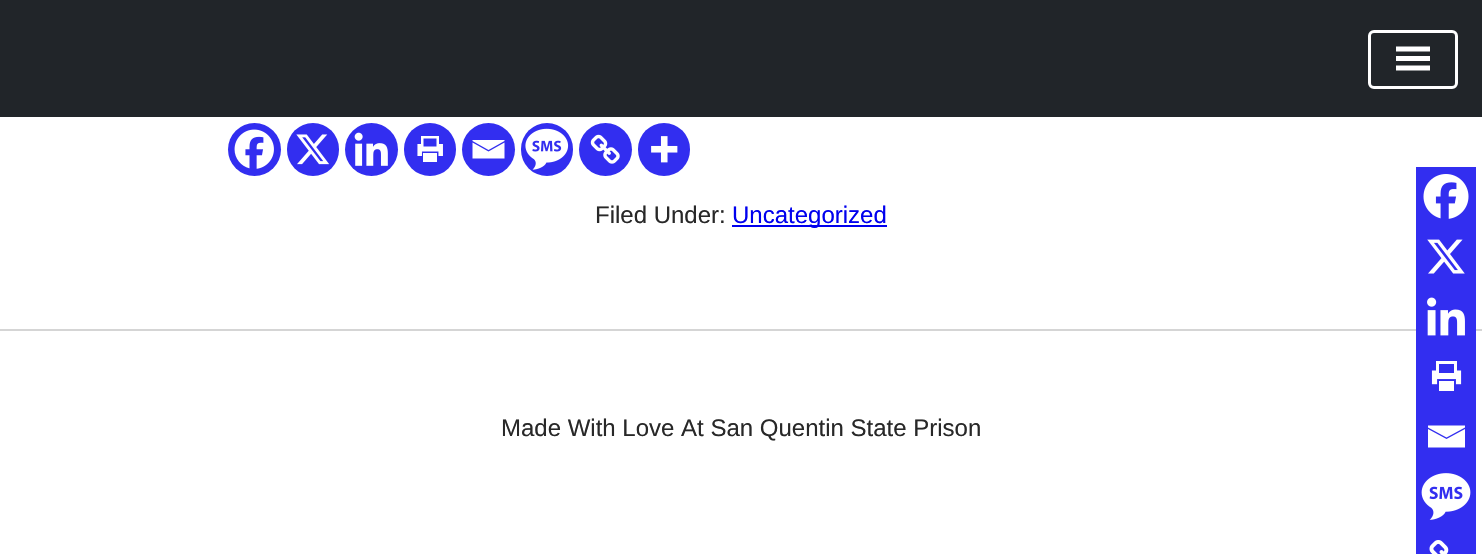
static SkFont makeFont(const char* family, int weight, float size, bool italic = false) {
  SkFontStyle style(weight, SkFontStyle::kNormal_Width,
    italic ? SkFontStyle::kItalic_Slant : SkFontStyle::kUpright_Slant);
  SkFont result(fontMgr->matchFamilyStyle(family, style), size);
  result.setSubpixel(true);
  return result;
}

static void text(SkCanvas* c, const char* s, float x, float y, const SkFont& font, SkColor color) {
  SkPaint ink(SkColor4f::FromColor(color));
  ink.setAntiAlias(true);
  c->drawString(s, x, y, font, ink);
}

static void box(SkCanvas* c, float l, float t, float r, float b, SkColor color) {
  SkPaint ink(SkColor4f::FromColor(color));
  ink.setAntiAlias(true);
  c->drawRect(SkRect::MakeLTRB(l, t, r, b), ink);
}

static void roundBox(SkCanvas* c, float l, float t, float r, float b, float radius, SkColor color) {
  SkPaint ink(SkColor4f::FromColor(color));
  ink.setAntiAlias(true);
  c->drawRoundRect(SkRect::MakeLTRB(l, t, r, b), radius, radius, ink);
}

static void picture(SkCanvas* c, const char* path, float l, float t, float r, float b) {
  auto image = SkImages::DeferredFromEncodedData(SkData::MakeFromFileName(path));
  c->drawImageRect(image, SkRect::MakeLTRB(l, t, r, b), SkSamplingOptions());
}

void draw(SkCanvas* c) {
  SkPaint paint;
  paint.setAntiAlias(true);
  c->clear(0xffffffff);
  box(c, 0, 0, 1482, 117, 0xff212529);
  paint.setStyle(SkPaint::kStroke_Style);
  paint.setStrokeWidth(3);
  paint.setColor(0xffffffff);
  c->drawRoundRect(SkRect::MakeLTRB(1369.5f, 31.5f, 1456.5f, 87.5f), 4.5f, 4.5f, paint);
  paint.setStyle(SkPaint::kFill_Style);
  c->drawPath(SkPathBuilder().moveTo(1396, 70.5f).lineTo(1430, 70.5f).lineTo(1430, 65.5f).lineTo(1396, 65.5f).close().moveTo(1396, 46.5f).lineTo(1396, 51.5f).lineTo(1430, 51.5f).lineTo(1430, 46.5f).close().moveTo(1396, 61).lineTo(1430, 61).lineTo(1430, 56).lineTo(1396, 56).close().detach(), paint);
  paint.setColor(0xff322ef0);
  c->drawCircle(254.5f, 149.5f, 26.5f, paint);
  picture(c, "img_01.png", 234, 129, 274, 169);
  roundBox(c, 287, 123, 339, 176, 26, 0xff322ef0);
  picture(c, "img_02.png", 296, 134, 329, 165);
  c->drawCircle(371.5f, 149.5f, 26.5f, paint);
  picture(c, "img_03.png", 354, 132, 388, 166);
  roundBox(c, 404, 123, 456, 176, 26, 0xff322ef0);
  picture(c, "img_04.png", 417, 136, 443, 162);
  c->drawCircle(488.5f, 149.5f, 26.5f, paint);
  paint.setColor(0xffffffff);
  c->drawPath(SkPathBuilder().moveTo(471, 140).lineTo(504.5f, 140).lineTo(504.5f, 141).lineTo(488.5f, 150).lineTo(472.5f, 141).lineTo(472.5f, 140).moveTo(472.5f, 142.5f).lineTo(488.5f, 151.5f).lineTo(504.5f, 142.5f).lineTo(504.5f, 158.5f).lineTo(472.5f, 158.5f).lineTo(472.5f, 142.5f).detach(), paint);
  roundBox(c, 521, 123, 573, 176, 26, 0xff322ef0);
  picture(c, "img_05.png", 525, 128, 569, 170);
  paint.setColor(0xff322ef0);
  c->drawCircle(605.5f, 149.5f, 26.5f, paint);
  picture(c, "img_06.png", 590, 134, 620, 164);
  roundBox(c, 638, 123, 690, 176, 26, 0xff322ef0);
  picture(c, "img_07.png", 651, 136, 678, 163);
  box(c, 0, 329, 1482, 331, 0xffd5d5d5);
  box(c, 1416, 167, 1476, 554, 0xff322ef0);
  picture(c, "img_08.png", 1423, 174, 1469, 219);
  picture(c, "img_09.png", 1427, 239, 1465, 274);
  picture(c, "img_10.png", 1427, 297, 1465, 336);
  picture(c, "img_11.png", 1431, 361, 1462, 391);
  paint.setColor(0xffffffff);
  c->drawPath(SkPathBuilder().moveTo(1426.5f, 425.5f).lineTo(1465, 425.5f).lineTo(1465, 427.5f).lineTo(1446.5f, 437.5f).lineTo(1428, 427.5f).lineTo(1428, 425.5f).moveTo(1428, 429).lineTo(1446.5f, 439).lineTo(1465, 429).lineTo(1465, 447.5f).lineTo(1428, 447.5f).lineTo(1428, 429).detach(), paint);
  picture(c, "img_12.png", 1421, 473, 1471, 520);
  picture(c, "img_13.png", 1429, 540, 1449, 554);
  SkFont face1 = makeFont("Liberation Sans", 400, 24);
  text(c, "Filed Under:", 595, 223, face1, 0xff282828);
  box(c, 732, 225, 887, 227, 0xff0000ee);
  text(c, "Uncategorized", 732, 223, face1, 0xff0000ee);
  text(c, "Made With Love At San Quentin State Prison", 501, 436, face1, 0xff282828);
}
